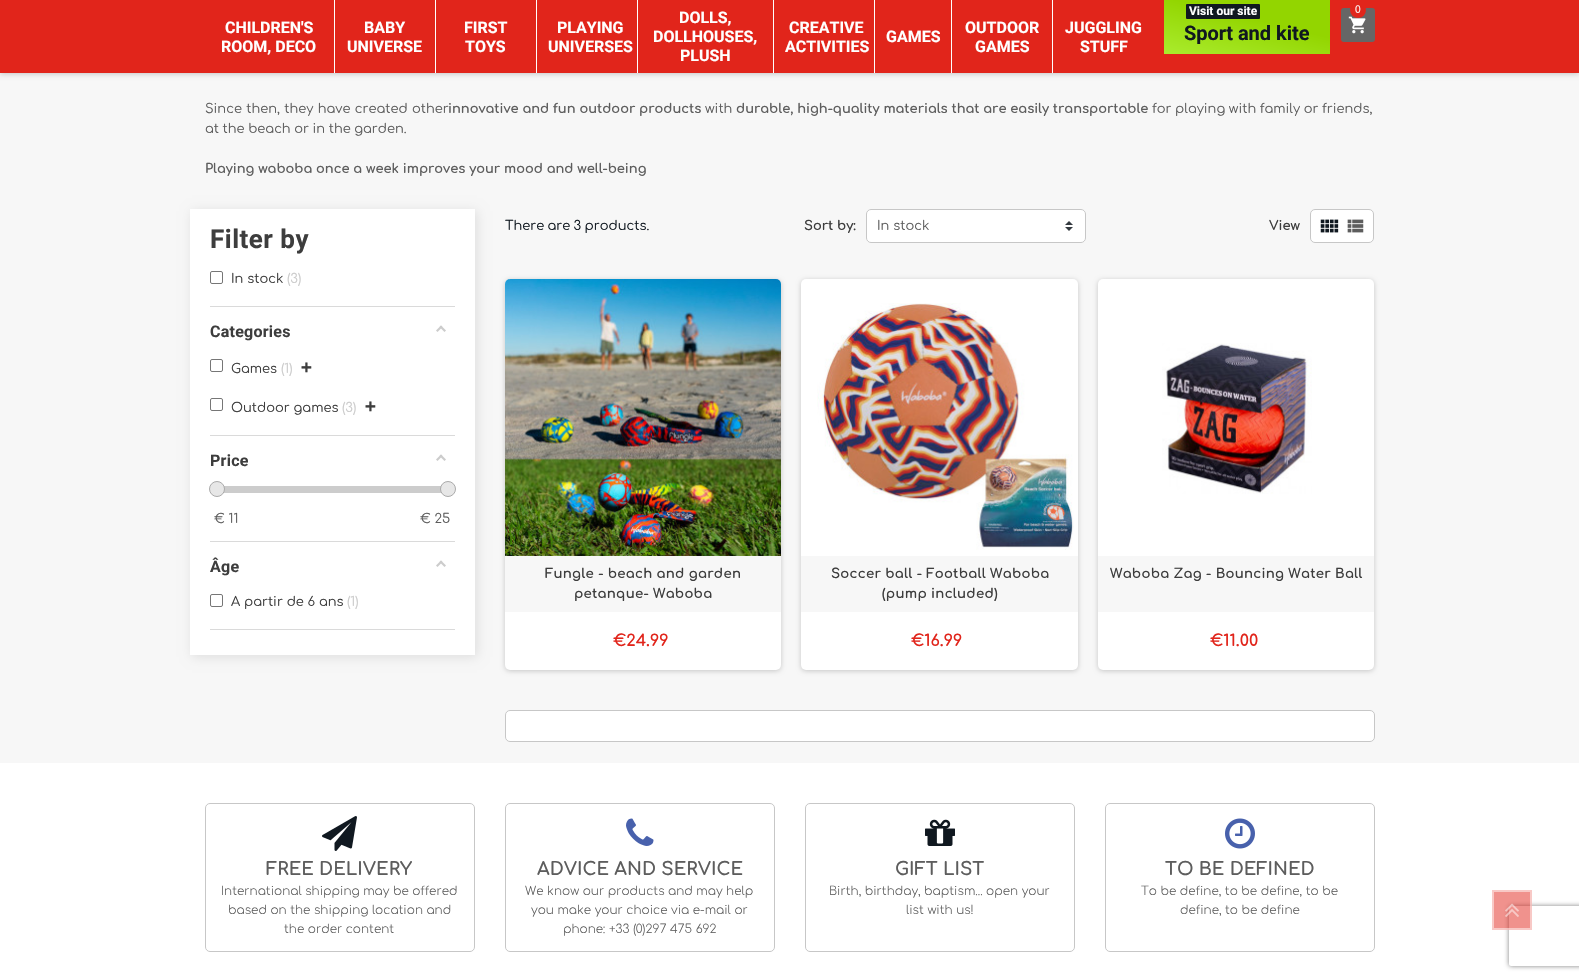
static SkFont makeFont(const char* family, int weight, float size, bool italic = false) {
  SkFontStyle style(weight, SkFontStyle::kNormal_Width,
    italic ? SkFontStyle::kItalic_Slant : SkFontStyle::kUpright_Slant);
  SkFont result(fontMgr->matchFamilyStyle(family, style), size);
  result.setSubpixel(true);
  return result;
}

static void text(SkCanvas* c, const char* s, float x, float y, const SkFont& font, SkColor color) {
  SkPaint ink(SkColor4f::FromColor(color));
  ink.setAntiAlias(true);
  c->drawString(s, x, y, font, ink);
}

static void spacedText(SkCanvas* c, const char* s, float x, float y, const SkFont& font, const SkPaint& ink, float letter, float word) {
  std::vector<SkGlyphID> glyphs(font.countText(s, strlen(s), SkTextEncoding::kUTF8));
  std::vector<float> xs(glyphs.size());
  font.textToGlyphs(s, strlen(s), SkTextEncoding::kUTF8, glyphs);
  font.getXPos(glyphs, xs, x);
  float extra = 0;
  for (size_t i = 0; i < glyphs.size(); i++) {
    xs[i] += extra;
    extra += letter + word * (glyphs[i] == font.unicharToGlyph(' '));
  }
  c->drawTextBlob(SkTextBlob::MakeFromPosHGlyphs(glyphs, xs, y, font), 0, 0, ink);
}

static void box(SkCanvas* c, float l, float t, float r, float b, SkColor color) {
  SkPaint ink(SkColor4f::FromColor(color));
  ink.setAntiAlias(true);
  c->drawRect(SkRect::MakeLTRB(l, t, r, b), ink);
}

static void roundBox(SkCanvas* c, float l, float t, float r, float b, float radius, SkColor color) {
  SkPaint ink(SkColor4f::FromColor(color));
  ink.setAntiAlias(true);
  c->drawRoundRect(SkRect::MakeLTRB(l, t, r, b), radius, radius, ink);
}

static void picture(SkCanvas* c, const char* path, float l, float t, float r, float b) {
  auto image = SkImages::DeferredFromEncodedData(SkData::MakeFromFileName(path));
  c->drawImageRect(image, SkRect::MakeLTRB(l, t, r, b), SkSamplingOptions());
}

void draw(SkCanvas* c) {
  SkPaint paint;
  paint.setAntiAlias(true);
  c->clear(0xffffffff);
  box(c, 0, 73, 1579, 763, 0xfff7f7f7);
  paint.setColor(0x33000000);
  paint.setMaskFilter(SkMaskFilter::MakeBlur(kNormal_SkBlurStyle, 2.5f));
  c->drawRect(SkRect::MakeLTRB(0, 1, 1579, 74), paint);
  paint.setMaskFilter(nullptr);
  box(c, 0, 0, 1579, 73, 0xffe1251b);
  box(c, 334, 0, 335, 73, 0xffffffff);
  SkFont face1 = makeFont("Roboto", 700, 16);
  text(c, "CHILDREN'S", 225, 33, face1, 0xffffffff);
  text(c, "ROOM, DECO", 221, 52, face1, 0xffffffff);
  box(c, 435, 0, 436, 73, 0xffffffff);
  text(c, "BABY", 364, 33, face1, 0xffffffff);
  text(c, "UNIVERSE", 347, 52, face1, 0xffffffff);
  box(c, 536, 0, 537, 73, 0xffffffff);
  text(c, "FIRST", 464, 33, face1, 0xffffffff);
  text(c, "TOYS", 465, 52, face1, 0xffffffff);
  box(c, 637, 0, 638, 73, 0xffffffff);
  text(c, "PLAYING", 557, 33, face1, 0xffffffff);
  text(c, "UNIVERSES", 548, 52, face1, 0xffffffff);
  box(c, 773, 0, 774, 73, 0xffffffff);
  text(c, "DOLLS,", 679, 23, face1, 0xffffffff);
  text(c, "DOLLHOUSES,", 653, 42, face1, 0xffffffff);
  text(c, "PLUSH", 680, 61, face1, 0xffffffff);
  box(c, 874, 0, 875, 73, 0xffffffff);
  text(c, "CREATIVE", 789, 33, face1, 0xffffffff);
  text(c, "ACTIVITIES", 785, 52, face1, 0xffffffff);
  box(c, 951, 0, 952, 73, 0xffffffff);
  text(c, "GAMES", 886, 42, face1, 0xffffffff);
  box(c, 1052, 0, 1053, 73, 0xffffffff);
  text(c, "OUTDOOR", 965, 33, face1, 0xffffffff);
  text(c, "GAMES", 975, 52, face1, 0xffffffff);
  text(c, "JUGGLING", 1065, 33, face1, 0xffffffff);
  text(c, "STUFF", 1080, 52, face1, 0xffffffff);
  {
    const SkColor colors[] = {0xffaaec2e, 0xff93d500};
    const float stops[] = {0, 0.6f};
    const SkPoint ends[] = {{1236, 72}, {1258, -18}};
    paint.setShader(SkGradientShader::MakeLinear(ends, colors, stops, 2, SkTileMode::kClamp));
    paint.setAlpha(255);
  }
  c->drawRect(SkRect::MakeLTRB(1164, 0, 1330, 54), paint);
  roundBox(c, 1186, 4, 1260, 19, 1, 0xff101820);
  SkFont face2 = makeFont("Roboto", 700, 12);
  text(c, "Visit our site", 1189, 15, face2, 0xffffffff);
  SkFont face3 = makeFont("Roboto", 700, 20);
  text(c, "Sport and kite", 1184, 40, face3, 0xff101820);
  roundBox(c, 1341, 8, 1375, 42, 3, 0xff666666);
  picture(c, "img_01.png", 1348, 16, 1366, 34);
  paint.setShader(nullptr);
  paint.setColor(0xffe1251b);
  c->drawCircle(1358, 10, 8, paint);
  SkFont face4 = makeFont("Comfortaa", 400, 10);
  text(c, "0", 1355, 13, face4, 0xffffffff);
  SkFont face5 = makeFont("Comfortaa", 400, 13);
  paint.setColor(0xff5d5d5d);
  spacedText(c, "Since then, they have created other", 205, 113, face5, paint, 0, 0.5f);
  SkFont face6 = makeFont("Comfortaa", 700, 13);
  text(c, "innovative and fun outdoor products", 448, 113, face6, 0xff5d5d5d);
  text(c, "with", 705, 113, face5, 0xff5d5d5d);
  text(c, "durable, high-quality materials that are easily transportable", 736, 113, face6, 0xff5d5d5d);
  spacedText(c, "for playing with family or friends,", 1152, 113, face5, paint, 0, -0.25f);
  spacedText(c, "at the beach or in the garden.", 205, 133, face5, paint, 0, -0.25f);
  text(c, "Playing waboba once a week improves your mood and well-being", 205, 173, face6, 0xff5d5d5d);
  paint.setColor(0x1a000000);
  paint.setMaskFilter(SkMaskFilter::MakeBlur(kNormal_SkBlurStyle, 5.5f));
  c->drawRect(SkRect::MakeLTRB(192, 211, 477, 657), paint);
  paint.setMaskFilter(nullptr);
  box(c, 190, 209, 475, 655, 0xffffffff);
  SkFont face7 = makeFont("Roboto", 700, 26);
  paint.setColor(0xff3d3d3d);
  spacedText(c, "Filter by", 210, 248, face7, paint, 0.5f, 0);
  box(c, 210, 306, 455, 307, 0xffdadada);
  paint.setStyle(SkPaint::kStroke_Style);
  paint.setStrokeWidth(1);
  paint.setColor(0xff767676);
  c->drawRoundRect(SkRect::MakeLTRB(210.5f, 271.5f, 222.5f, 283.5f), 1.5f, 1.5f, paint);
  text(c, "In stock", 231, 283, face5, 0xff3d3d3d);
  text(c, "(3)", 287, 283, face5, 0xffcccccc);
  box(c, 210, 435, 455, 436, 0xffdadada);
  paint.setStyle(SkPaint::kFill_Style);
  paint.setColor(0xff3d3d3d);
  spacedText(c, "Categories", 210, 337, face1, paint, 0.25f, 0);
  paint.setColor(0xffcccccc);
  c->drawPath(SkPathBuilder().moveTo(441, 325.5f).lineTo(446, 330.5f).lineTo(444.5f, 332).lineTo(439.5f, 327).close().detach(), paint);
  c->drawPath(SkPathBuilder().moveTo(441, 325.5f).lineTo(442.5f, 327).lineTo(437.5f, 332).lineTo(436, 330.5f).close().detach(), paint);
  paint.setStyle(SkPaint::kStroke_Style);
  paint.setColor(0xff767676);
  c->drawRoundRect(SkRect::MakeLTRB(210.5f, 359.5f, 222.5f, 371.5f), 1.5f, 1.5f, paint);
  text(c, "Games", 231, 373, face5, 0xff3d3d3d);
  text(c, "(1)", 281, 373, face5, 0xffcccccc);
  SkFont face8 = makeFont("DejaVu Sans Mono", 700, 18);
  text(c, "+", 301, 373, face8, 0xff3d3d3d);
  c->drawRoundRect(SkRect::MakeLTRB(210.5f, 398.5f, 222.5f, 410.5f), 1.5f, 1.5f, paint);
  text(c, "Outdoor games", 231, 412, face5, 0xff3d3d3d);
  text(c, "(3)", 342, 412, face5, 0xffcccccc);
  text(c, "+", 365, 412, face8, 0xff3d3d3d);
  box(c, 210, 541, 455, 542, 0xffdadada);
  paint.setStyle(SkPaint::kFill_Style);
  paint.setColor(0xff3d3d3d);
  spacedText(c, "Price", 210, 466, face1, paint, 0.25f, 0);
  paint.setColor(0xffcccccc);
  c->drawPath(SkPathBuilder().moveTo(441, 454.5f).lineTo(446, 459.5f).lineTo(444.5f, 461).lineTo(439.5f, 456).close().detach(), paint);
  c->drawPath(SkPathBuilder().moveTo(441, 454.5f).lineTo(442.5f, 456).lineTo(437.5f, 461).lineTo(436, 459.5f).close().detach(), paint);
  box(c, 217, 486, 448, 493, 0xffcccccc);
  paint.setColor(0xffe7e7e7);
  c->drawCircle(217, 489, 7.5f, paint);
  paint.setStyle(SkPaint::kStroke_Style);
  paint.setColor(0xffaaaaaa);
  c->drawCircle(217, 489, 7.5f, paint);
  paint.setStyle(SkPaint::kFill_Style);
  paint.setColor(0xffe7e7e7);
  c->drawCircle(448, 489, 7.5f, paint);
  paint.setStyle(SkPaint::kStroke_Style);
  paint.setColor(0xffaaaaaa);
  c->drawCircle(448, 489, 7.5f, paint);
  text(c, "€ 11", 214, 523, face5, 0xff5d5d5d);
  text(c, "€ 25", 420, 523, face5, 0xff5d5d5d);
  box(c, 210, 629, 455, 630, 0xffdadada);
  paint.setStyle(SkPaint::kFill_Style);
  paint.setColor(0xff3d3d3d);
  spacedText(c, "Âge", 210, 572, face1, paint, 0.25f, 0);
  paint.setColor(0xffcccccc);
  c->drawPath(SkPathBuilder().moveTo(441, 560.5f).lineTo(446, 565.5f).lineTo(444.5f, 567).lineTo(439.5f, 562).close().detach(), paint);
  c->drawPath(SkPathBuilder().moveTo(441, 560.5f).lineTo(442.5f, 562).lineTo(437.5f, 567).lineTo(436, 565.5f).close().detach(), paint);
  paint.setStyle(SkPaint::kStroke_Style);
  paint.setColor(0xff767676);
  c->drawRoundRect(SkRect::MakeLTRB(210.5f, 594.5f, 222.5f, 606.5f), 1.5f, 1.5f, paint);
  text(c, "A partir de 6 ans", 231, 606, face5, 0xff3d3d3d);
  text(c, "(1)", 347, 606, face5, 0xffcccccc);
  paint.setStyle(SkPaint::kFill_Style);
  paint.setColor(0xff101820);
  spacedText(c, "There are 3 products.", 505, 230, face5, paint, 0, -0.5f);
  text(c, "Sort by:", 804, 230, face6, 0xff3d3d3d);
  roundBox(c, 866, 209, 1086, 243, 5, 0xffffffff);
  picture(c, "img_02.png", 1065, 221, 1073, 231);
  paint.setStyle(SkPaint::kStroke_Style);
  paint.setColor(0xffc7c7c7);
  c->drawRoundRect(SkRect::MakeLTRB(866.5f, 209.5f, 1085.5f, 242.5f), 4.5f, 4.5f, paint);
  text(c, "In stock", 877, 230, face5, 0xff5d5d5d);
  text(c, "View", 1269, 230, face6, 0xff3d3d3d);
  paint.setStyle(SkPaint::kFill_Style);
  paint.setColor(0xffffffff);
  c->drawRoundRect(SkRect::MakeLTRB(1310.5f, 209.5f, 1373.5f, 242.5f), 4.5f, 4.5f, paint);
  paint.setStyle(SkPaint::kStroke_Style);
  paint.setColor(0xffc7c7c7);
  c->drawRoundRect(SkRect::MakeLTRB(1310.5f, 209.5f, 1373.5f, 242.5f), 4.5f, 4.5f, paint);
  picture(c, "img_03.png", 1320, 219, 1339, 233);
  picture(c, "img_04.png", 1347, 219, 1364, 233);
  paint.setStyle(SkPaint::kFill_Style);
  paint.setColor(0x33000000);
  paint.setMaskFilter(SkMaskFilter::MakeBlur(kNormal_SkBlurStyle, 2.5f));
  c->drawRoundRect(SkRect::MakeLTRB(505, 280, 781, 671), 5, 5, paint);
  paint.setMaskFilter(nullptr);
  roundBox(c, 505, 279, 781, 670, 5, 0xffffffff);
  picture(c, "img_05.png", 505, 279, 781, 556);
  box(c, 505, 556, 781, 612, 0xfff7f7f7);
  SkFont face9 = makeFont("Comfortaa", 700, 13.25f);
  paint.setColor(0xff3d3d3d);
  spacedText(c, "Fungle - beach and garden", 545, 578, face9, paint, 0.25f, 0);
  spacedText(c, "petanque- Waboba", 574, 598, face9, paint, 0.25f, 0);
  SkFont face10 = makeFont("Comfortaa", 700, 16);
  text(c, "€24.99", 613, 646, face10, 0xffe1251b);
  paint.setColor(0x33000000);
  paint.setMaskFilter(SkMaskFilter::MakeBlur(kNormal_SkBlurStyle, 2.5f));
  c->drawRoundRect(SkRect::MakeLTRB(801, 280, 1078, 671), 5, 5, paint);
  paint.setMaskFilter(nullptr);
  roundBox(c, 801, 279, 1078, 670, 5, 0xffffffff);
  picture(c, "img_06.png", 817, 303, 1074, 550);
  box(c, 801, 556, 1078, 612, 0xfff7f7f7);
  paint.setColor(0xff3d3d3d);
  spacedText(c, "Soccer ball - Football Waboba", 831, 578, face9, paint, 0.25f, 0);
  spacedText(c, "(pump included)", 882, 598, face9, paint, 0.25f, 0);
  text(c, "€16.99", 911, 646, face10, 0xffe1251b);
  paint.setColor(0x33000000);
  paint.setMaskFilter(SkMaskFilter::MakeBlur(kNormal_SkBlurStyle, 2.5f));
  c->drawRoundRect(SkRect::MakeLTRB(1098, 280, 1374, 671), 5, 5, paint);
  paint.setMaskFilter(nullptr);
  roundBox(c, 1098, 279, 1374, 670, 5, 0xffffffff);
  picture(c, "img_07.png", 1162, 343, 1312, 494);
  box(c, 1098, 556, 1374, 612, 0xfff7f7f7);
  paint.setColor(0xff3d3d3d);
  spacedText(c, "Waboba Zag - Bouncing Water Ball", 1110, 578, face9, paint, 0.25f, 0);
  text(c, "€11.00", 1210, 646, face10, 0xffe1251b);
  paint.setColor(0xffffffff);
  c->drawRoundRect(SkRect::MakeLTRB(505.5f, 710.5f, 1374.5f, 741.5f), 4.5f, 4.5f, paint);
  paint.setStyle(SkPaint::kStroke_Style);
  paint.setColor(0xffc7c7c7);
  c->drawRoundRect(SkRect::MakeLTRB(505.5f, 710.5f, 1374.5f, 741.5f), 4.5f, 4.5f, paint);
  c->drawRoundRect(SkRect::MakeLTRB(205.5f, 803.5f, 474.5f, 951.5f), 4.5f, 4.5f, paint);
  picture(c, "img_08.png", 322, 816, 357, 851);
  SkFont face11 = makeFont("Comfortaa", 700, 18);
  text(c, "FREE DELIVERY", 266, 875, face11, 0xff5d5d5d);
  SkFont face12 = makeFont("Comfortaa", 300, 12);
  text(c, "International shipping may be offered", 221, 895, face12, 0xff5d5d5d);
  text(c, "based on the shipping location and", 228, 914, face12, 0xff5d5d5d);
  text(c, "the order content", 284, 933, face12, 0xff5d5d5d);
  c->drawRoundRect(SkRect::MakeLTRB(505.5f, 803.5f, 774.5f, 951.5f), 4.5f, 4.5f, paint);
  picture(c, "img_09.png", 626, 818, 654, 846);
  text(c, "ADVICE AND SERVICE", 537, 875, face11, 0xff5d5d5d);
  text(c, "We know our products and may help", 525, 895, face12, 0xff5d5d5d);
  text(c, "you make your choice via e-mail or", 531, 914, face12, 0xff5d5d5d);
  text(c, "phone: +33 (0)297 475 692", 563, 933, face12, 0xff5d5d5d);
  c->drawRoundRect(SkRect::MakeLTRB(805.5f, 803.5f, 1074.5f, 951.5f), 4.5f, 4.5f, paint);
  picture(c, "img_10.png", 925, 819, 955, 846);
  text(c, "GIFT LIST", 895, 875, face11, 0xff5d5d5d);
  text(c, "Birth, birthday, baptism... open your", 829, 895, face12, 0xff5d5d5d);
  text(c, "list with us!", 906, 914, face12, 0xff5d5d5d);
  c->drawRoundRect(SkRect::MakeLTRB(1105.5f, 803.5f, 1374.5f, 951.5f), 4.5f, 4.5f, paint);
  picture(c, "img_11.png", 1225, 818, 1255, 849);
  text(c, "TO BE DEFINED", 1165, 875, face11, 0xff5d5d5d);
  text(c, "To be define, to be define, to be", 1141, 895, face12, 0xff5d5d5d);
  text(c, "define, to be define", 1180, 914, face12, 0xff5d5d5d);
  c->save();
  c->clipPath(SkPathBuilder(SkPathFillType::kEvenOdd).moveTo(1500, 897).lineTo(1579, 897).lineTo(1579, 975).lineTo(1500, 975).close().moveTo(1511, 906).lineTo(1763, 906).cubicTo(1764, 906, 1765, 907, 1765, 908).lineTo(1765, 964).cubicTo(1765, 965, 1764, 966, 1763, 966).lineTo(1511, 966).cubicTo(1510, 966, 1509, 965, 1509, 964).lineTo(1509, 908).cubicTo(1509, 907, 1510, 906, 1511, 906).close().detach(), true);
  paint.setStyle(SkPaint::kFill_Style);
  paint.setColor(0xff808080);
  paint.setMaskFilter(SkMaskFilter::MakeBlur(kNormal_SkBlurStyle, 2.5f));
  c->drawRoundRect(SkRect::MakeLTRB(1509, 906, 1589, 966), 2, 2, paint);
  paint.setMaskFilter(nullptr);
  c->restore();
  box(c, 1492, 890, 1532, 930, 0x80e1251b);
  paint.setStyle(SkPaint::kStroke_Style);
  paint.setStrokeWidth(2);
  paint.setColor(0x80ffffff);
  c->drawRect(SkRect::MakeLTRB(1493, 891, 1531, 929), paint);
  picture(c, "img_12.png", 1505, 903, 1519, 917);
}
